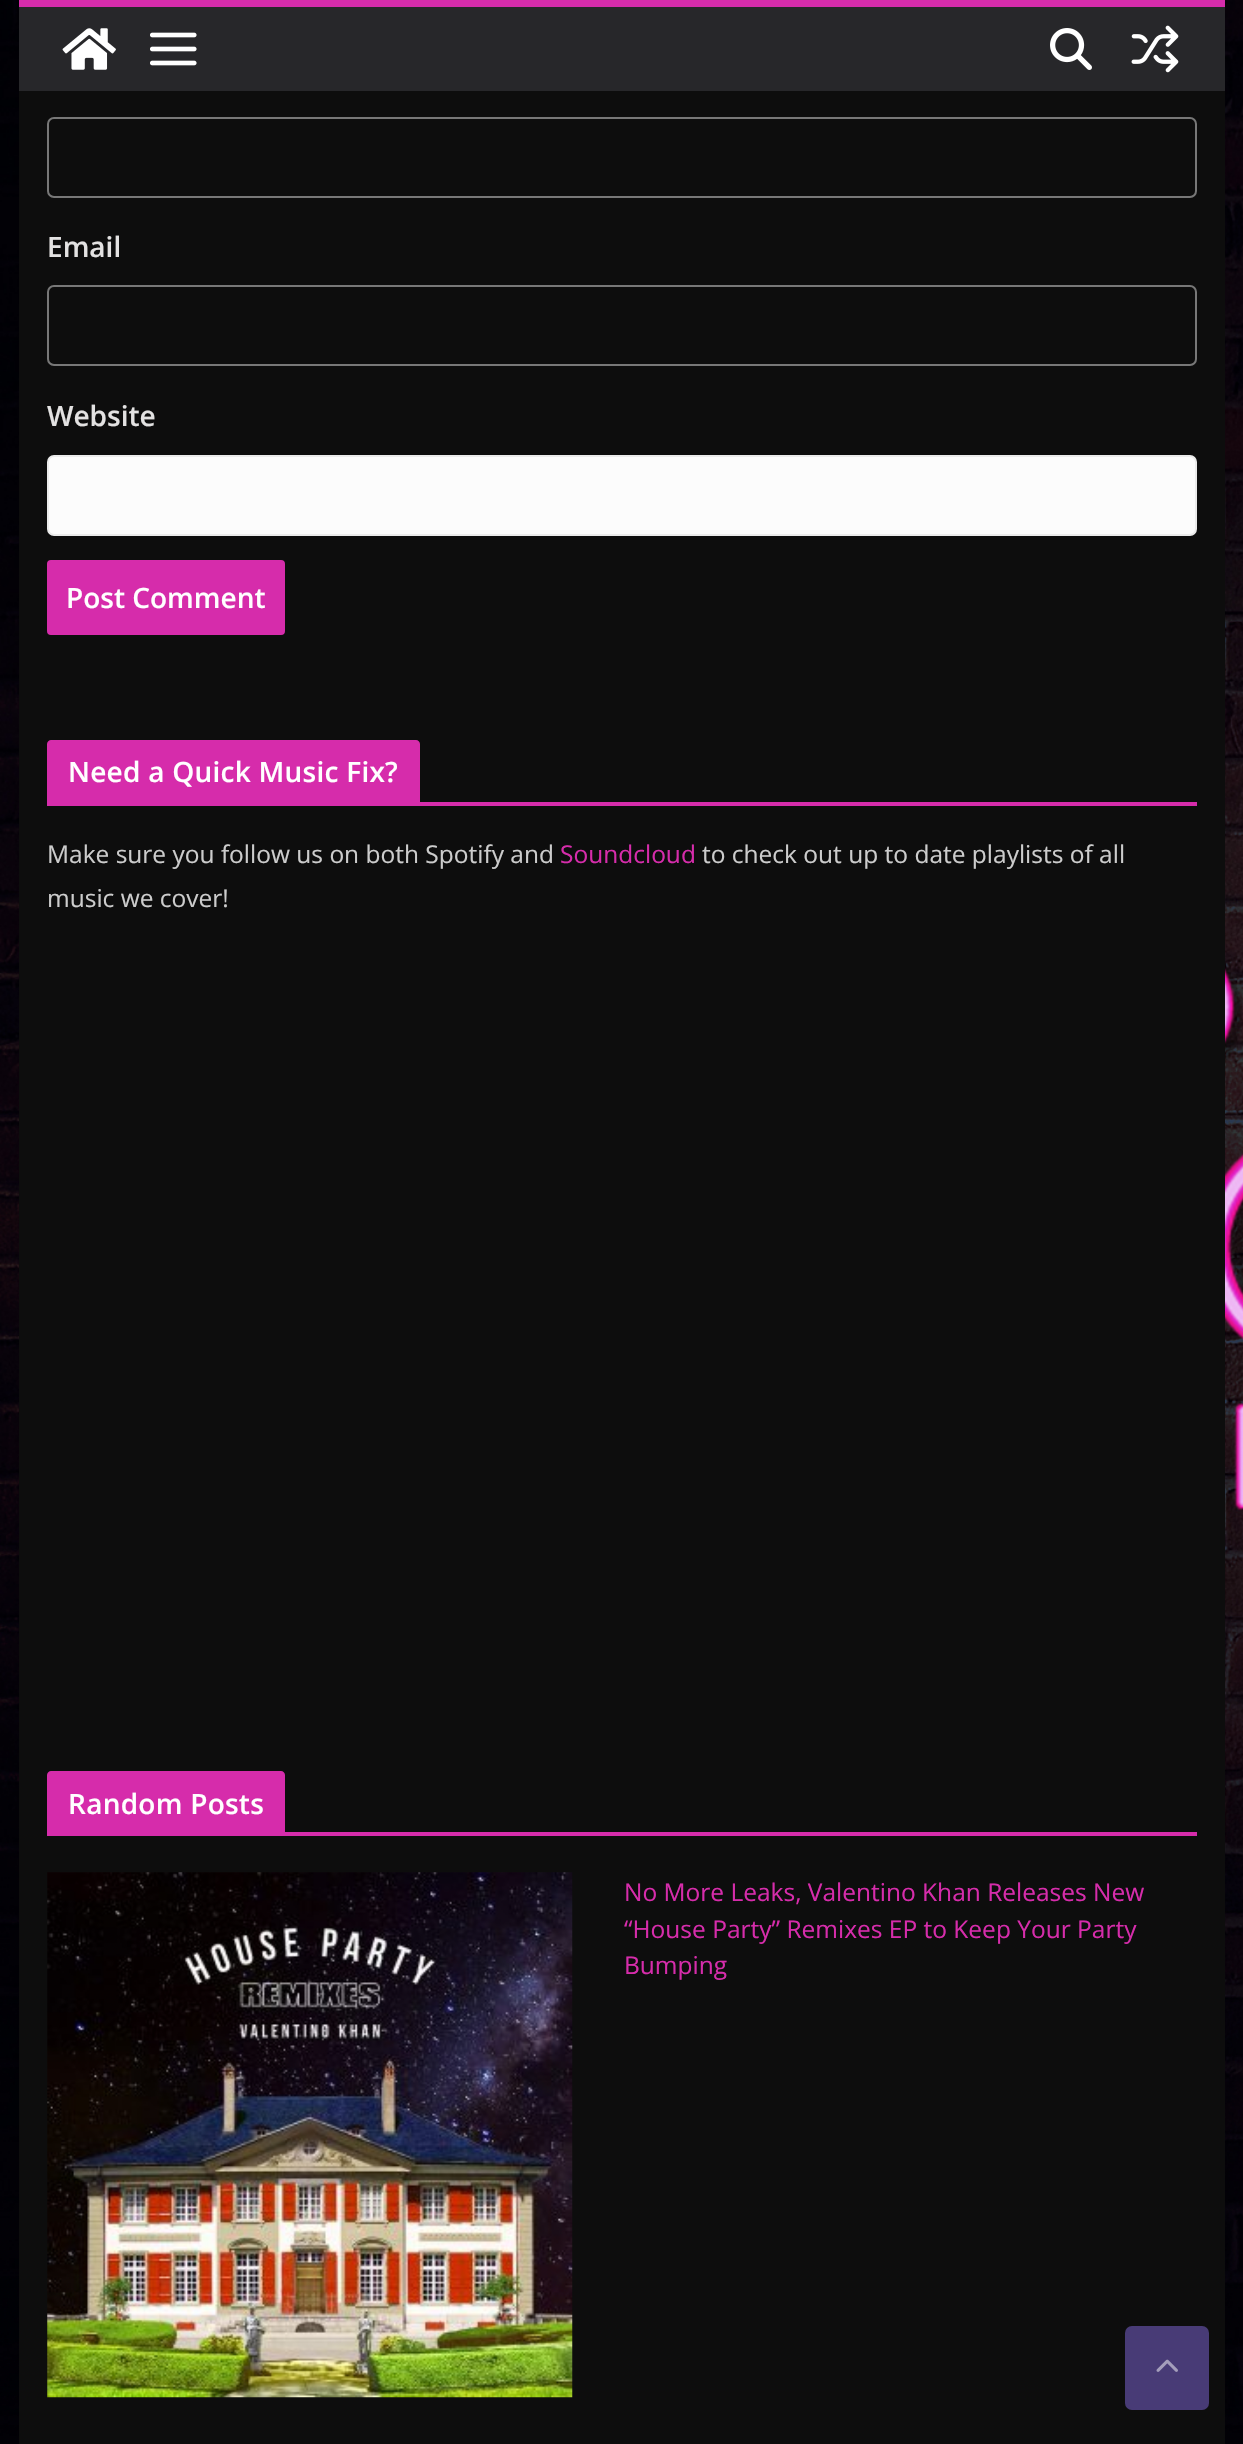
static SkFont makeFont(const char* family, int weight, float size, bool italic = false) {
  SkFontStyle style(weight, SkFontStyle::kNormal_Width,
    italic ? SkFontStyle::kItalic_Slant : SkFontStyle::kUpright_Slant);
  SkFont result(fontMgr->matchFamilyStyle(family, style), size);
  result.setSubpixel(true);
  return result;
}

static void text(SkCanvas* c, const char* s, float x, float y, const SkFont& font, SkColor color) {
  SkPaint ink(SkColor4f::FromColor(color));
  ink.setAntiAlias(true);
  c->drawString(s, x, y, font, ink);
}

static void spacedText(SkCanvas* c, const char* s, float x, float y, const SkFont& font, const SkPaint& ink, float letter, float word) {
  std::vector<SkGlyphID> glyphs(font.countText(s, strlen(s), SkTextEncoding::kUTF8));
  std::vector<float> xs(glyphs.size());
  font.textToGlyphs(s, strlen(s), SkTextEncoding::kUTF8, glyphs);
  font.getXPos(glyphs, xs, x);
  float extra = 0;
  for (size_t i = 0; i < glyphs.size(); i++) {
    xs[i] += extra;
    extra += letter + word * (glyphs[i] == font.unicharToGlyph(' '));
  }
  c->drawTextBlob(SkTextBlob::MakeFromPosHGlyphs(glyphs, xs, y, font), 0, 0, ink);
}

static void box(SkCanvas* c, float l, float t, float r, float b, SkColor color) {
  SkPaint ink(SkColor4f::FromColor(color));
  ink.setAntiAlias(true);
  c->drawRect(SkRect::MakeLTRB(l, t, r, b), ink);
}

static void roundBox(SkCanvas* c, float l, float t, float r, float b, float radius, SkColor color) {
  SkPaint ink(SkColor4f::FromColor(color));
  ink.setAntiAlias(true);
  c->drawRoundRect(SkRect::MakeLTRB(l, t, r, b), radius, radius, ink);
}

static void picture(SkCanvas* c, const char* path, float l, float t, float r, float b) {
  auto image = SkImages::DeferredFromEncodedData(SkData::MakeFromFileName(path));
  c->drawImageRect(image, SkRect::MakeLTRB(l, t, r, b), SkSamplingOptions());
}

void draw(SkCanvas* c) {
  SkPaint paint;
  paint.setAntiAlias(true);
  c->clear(0xffffffff);
  picture(c, "img_01.png", 0, 0, 1243, 2444);
  box(c, 19, 91, 1225, 2444, 0xff0d0d0d);
  box(c, 19, 7, 1225, 91, 0xff27272a);
  box(c, 19, 0, 1225, 7, 0xffd62cab);
  picture(c, "img_02.png", 62, 28, 116, 70);
  picture(c, "img_03.png", 150, 32, 197, 66);
  picture(c, "img_04.png", 1050, 28, 1092, 70);
  picture(c, "img_05.png", 1131, 25, 1179, 73);
  paint.setStyle(SkPaint::kStroke_Style);
  paint.setStrokeWidth(2);
  paint.setColor(0xff777777);
  c->drawRoundRect(SkRect::MakeLTRB(48, 118, 1196, 197), 6, 6, paint);
  SkFont face1 = makeFont("Open Sans", 600, 28);
  text(c, "Email", 47, 257, face1, 0xffe3e2e2);
  c->drawRoundRect(SkRect::MakeLTRB(48, 286, 1196, 365), 6, 6, paint);
  text(c, "Website", 47, 426, face1, 0xffe3e2e2);
  paint.setStyle(SkPaint::kFill_Style);
  paint.setColor(0xfffcfcfc);
  c->drawRoundRect(SkRect::MakeLTRB(48, 456, 1196, 535), 6, 6, paint);
  paint.setStyle(SkPaint::kStroke_Style);
  paint.setColor(0xffebebeb);
  c->drawRoundRect(SkRect::MakeLTRB(48, 456, 1196, 535), 6, 6, paint);
  paint.setStyle(SkPaint::kFill_Style);
  paint.setColor(0xffd62cab);
  c->drawRoundRect(SkRect::MakeLTRB(48, 561, 284, 634), 3, 3, paint);
  paint.setStyle(SkPaint::kStroke_Style);
  c->drawRoundRect(SkRect::MakeLTRB(48, 561, 284, 634), 3, 3, paint);
  text(c, "Post Comment", 66, 608, face1, 0xffffffff);
  box(c, 47, 802, 1197, 806, 0xffd62cab);
  paint.setStyle(SkPaint::kFill_Style);
  c->drawPath(SkPathBuilder().moveTo(51, 740).lineTo(416, 740).cubicTo(418, 740, 420, 742, 420, 744).lineTo(420, 802).lineTo(47, 802).lineTo(47, 744).cubicTo(47, 742, 49, 740, 51, 740).close().detach(), paint);
  paint.setColor(0xffffffff);
  spacedText(c, "Need a Quick Music Fix?", 68, 782, face1, paint, 0.25f, 0);
  SkFont face2 = makeFont("Open Sans", 400, 24.5f);
  text(c, "Make sure you follow us on both Spotify and", 47, 863, face2, 0xffcccccc);
  text(c, "Soundcloud", 560, 863, face2, 0xffd62cab);
  text(c, "to check out up to date playlists of all", 702, 863, face2, 0xffcccccc);
  text(c, "music we cover!", 47, 907, face2, 0xffcccccc);
  box(c, 47, 1832, 1197, 1836, 0xffd62cab);
  paint.setColor(0xffd62cab);
  c->drawPath(SkPathBuilder().moveTo(51, 1771).lineTo(281, 1771).cubicTo(283, 1771, 285, 1773, 285, 1775).lineTo(285, 1832).lineTo(47, 1832).lineTo(47, 1775).cubicTo(47, 1773, 49, 1771, 51, 1771).close().detach(), paint);
  paint.setColor(0xffffffff);
  spacedText(c, "Random Posts", 68, 1814, face1, paint, 0.25f, 0);
  picture(c, "img_06.png", 47, 1872, 573, 2398);
  text(c, "No More Leaks, Valentino Khan Releases New", 624, 1901, face2, 0xffd62cab);
  text(c, "“House Party” Remixes EP to Keep Your Party", 624, 1938, face2, 0xffd62cab);
  text(c, "Bumping", 624, 1974, face2, 0xffd62cab);
  roundBox(c, 1125, 2326, 1209, 2410, 7, 0xff483b76);
  picture(c, "img_07.png", 1156, 2359, 1178, 2372);
}
